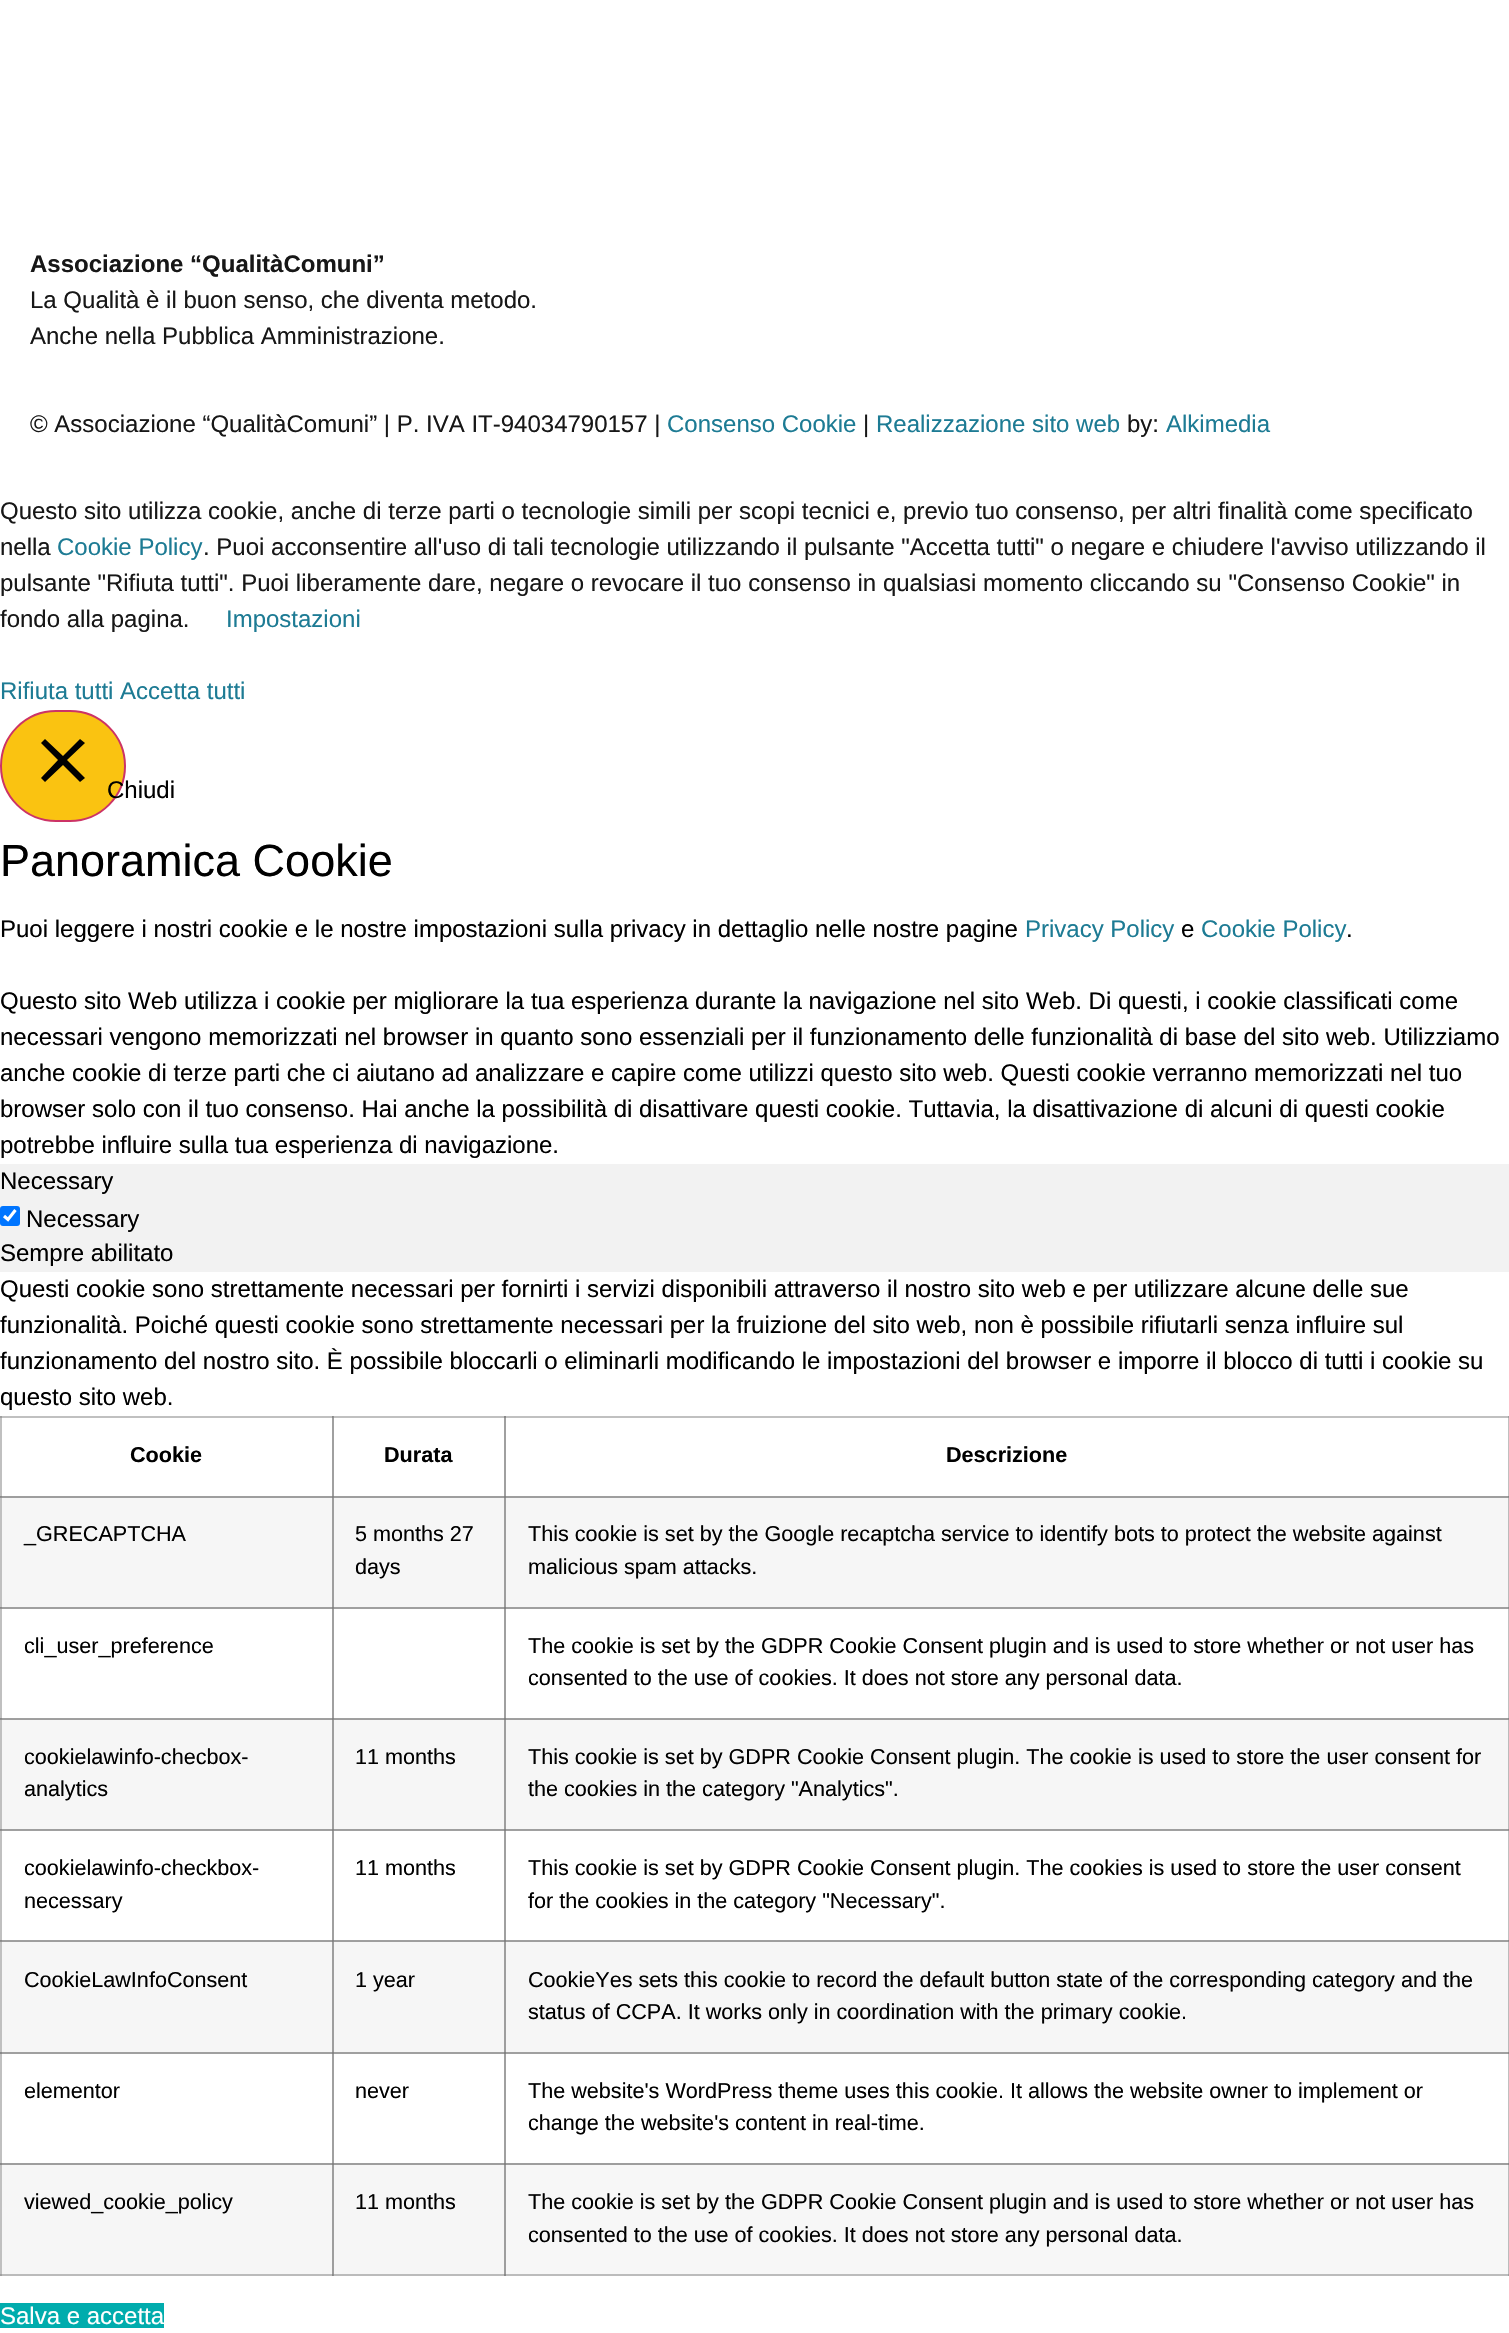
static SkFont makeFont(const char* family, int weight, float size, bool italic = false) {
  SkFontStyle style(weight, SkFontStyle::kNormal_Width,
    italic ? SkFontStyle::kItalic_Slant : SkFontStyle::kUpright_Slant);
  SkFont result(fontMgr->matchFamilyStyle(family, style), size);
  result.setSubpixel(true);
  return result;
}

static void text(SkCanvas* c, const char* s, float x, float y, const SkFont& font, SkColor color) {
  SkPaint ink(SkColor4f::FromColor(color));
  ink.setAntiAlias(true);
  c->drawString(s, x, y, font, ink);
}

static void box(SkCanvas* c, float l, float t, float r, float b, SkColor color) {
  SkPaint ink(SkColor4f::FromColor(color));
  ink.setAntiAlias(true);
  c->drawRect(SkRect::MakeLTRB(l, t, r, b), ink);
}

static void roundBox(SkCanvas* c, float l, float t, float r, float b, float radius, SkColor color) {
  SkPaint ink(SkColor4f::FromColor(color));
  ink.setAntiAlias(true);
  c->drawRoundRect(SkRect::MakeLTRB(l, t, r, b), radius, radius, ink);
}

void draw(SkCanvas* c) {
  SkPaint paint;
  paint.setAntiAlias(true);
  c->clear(0xffffffff);
  box(c, 0, 1416, 2, 2276, 0xffc0c0c0);
  box(c, 0, 1416, 333, 1418, 0xffc0c0c0);
  box(c, 0, 1416, 2, 1418, 0xffa0a0a0);
  box(c, 332, 1416, 334, 1497, 0xffa0a0a0);
  box(c, 332, 1416, 506, 1418, 0xffc0c0c0);
  box(c, 332, 1416, 334, 1418, 0xff909090);
  box(c, 332, 1416, 333, 1418, 0xff888888);
  box(c, 504, 1416, 506, 1497, 0xffa0a0a0);
  box(c, 1508, 1416, 1509, 1497, 0xffc0c0c0);
  box(c, 0, 1497, 2, 1498, 0xff909090);
  box(c, 0, 1496, 2, 1497, 0xff888888);
  box(c, 0, 1607, 333, 1609, 0xffa0a0a0);
  box(c, 0, 1608, 2, 1609, 0xff909090);
  box(c, 0, 1607, 2, 1608, 0xff888888);
  box(c, 332, 1607, 334, 1719, 0xffa0a0a0);
  box(c, 332, 1607, 506, 1609, 0xffa0a0a0);
  box(c, 332, 1608, 334, 1609, 0xff888888);
  box(c, 332, 1607, 334, 1608, 0xff828282);
  box(c, 332, 1607, 333, 1609, 0xff828282);
  box(c, 504, 1607, 506, 1719, 0xffa0a0a0);
  box(c, 1508, 1607, 1509, 1719, 0xffc0c0c0);
  box(c, 0, 1718, 1509, 1719, 0xffa0a0a0);
  box(c, 0, 1719, 2, 1720, 0xff909090);
  box(c, 0, 1718, 2, 1719, 0xff888888);
  box(c, 332, 1718, 334, 1719, 0xff828282);
  box(c, 504, 1718, 506, 1719, 0xff818181);
  box(c, 1508, 1718, 1509, 1719, 0xff888888);
  box(c, 0, 1830, 333, 1831, 0xffa0a0a0);
  box(c, 0, 1830, 2, 1831, 0xff909090);
  box(c, 0, 1829, 2, 1830, 0xff888888);
  box(c, 332, 1829, 334, 1941, 0xffa0a0a0);
  box(c, 332, 1830, 506, 1831, 0xffa0a0a0);
  box(c, 332, 1830, 334, 1831, 0xff888888);
  box(c, 332, 1829, 333, 1831, 0xff828282);
  box(c, 504, 1829, 506, 1941, 0xffa0a0a0);
  box(c, 1508, 1829, 1509, 1941, 0xffc0c0c0);
  box(c, 504, 1830, 1509, 1831, 0xffa0a0a0);
  box(c, 504, 1830, 506, 1831, 0xff828282);
  box(c, 1508, 1829, 1509, 1831, 0xff909090);
  box(c, 0, 1940, 1509, 1941, 0xffa0a0a0);
  box(c, 0, 1941, 2, 1942, 0xff909090);
  box(c, 0, 1940, 2, 1941, 0xff888888);
  box(c, 332, 1940, 334, 1941, 0xff828282);
  box(c, 504, 1940, 506, 1941, 0xff818181);
  box(c, 1508, 1940, 1509, 1941, 0xff888888);
  box(c, 0, 2052, 333, 2054, 0xffa0a0a0);
  box(c, 0, 2052, 2, 2054, 0xff888888);
  box(c, 332, 2052, 334, 2165, 0xffa0a0a0);
  box(c, 332, 2052, 506, 2054, 0xffa0a0a0);
  box(c, 332, 2052, 334, 2054, 0xff828282);
  box(c, 504, 2052, 506, 2165, 0xffa0a0a0);
  box(c, 1508, 2052, 1509, 2165, 0xffc0c0c0);
  box(c, 0, 2274, 2, 2276, 0xffa0a0a0);
  box(c, 0, 2163, 2, 2165, 0xff888888);
  SkFont face1 = makeFont("Liberation Sans", 700, 24);
  text(c, "Associazione “QualitàComuni”", 30, 272, face1, 0xff171717);
  SkFont face2 = makeFont("Liberation Sans", 400, 24);
  text(c, "La Qualità è il buon senso, che diventa metodo.", 30, 308, face2, 0xff171717);
  text(c, "Anche nella Pubblica Amministrazione.", 30, 344, face2, 0xff171717);
  text(c, "© Associazione “QualitàComuni” | P. IVA IT-94034790157 |", 30, 432, face2, 0xff171717);
  text(c, "Consenso Cookie", 667, 432, face2, 0xff1d7b94);
  text(c, "|", 863, 432, face2, 0xff171717);
  text(c, "Realizzazione sito web", 876, 432, face2, 0xff1d7b94);
  text(c, "by:", 1127, 432, face2, 0xff171717);
  text(c, "Alkimedia", 1166, 432, face2, 0xff1d7b94);
  text(c, "Questo sito utilizza cookie, anche di terze parti o tecnologie simili per scopi tecnici e, previo tuo consenso, per altri finalità come specificato", 0, 519, face2, 0xff171717);
  text(c, "nella", 0, 555, face2, 0xff171717);
  text(c, "Cookie Policy", 57, 555, face2, 0xff1d7b94);
  text(c, ". Puoi acconsentire all'uso di tali tecnologie utilizzando il pulsante \"Accetta tutti\" o negare e chiudere l'avviso utilizzando il", 203, 555, face2, 0xff171717);
  text(c, "pulsante \"Rifiuta tutti\". Puoi liberamente dare, negare o revocare il tuo consenso in qualsiasi momento cliccando su \"Consenso Cookie\" in", 0, 591, face2, 0xff171717);
  text(c, "fondo alla pagina.", 0, 627, face2, 0xff171717);
  text(c, "Impostazioni", 226, 627, face2, 0xff1d7b94);
  text(c, "Rifiuta tutti Accetta tutti", 0, 699, face2, 0xff1d7b94);
  paint.setColor(0xfffac311);
  c->drawRoundRect(SkRect::MakeLTRB(1, 711, 125, 821), 55, 55, paint);
  paint.setStyle(SkPaint::kStroke_Style);
  paint.setStrokeWidth(2);
  paint.setColor(0xffcc3366);
  c->drawRoundRect(SkRect::MakeLTRB(1, 711, 125, 821), 55, 55, paint);
  paint.setStyle(SkPaint::kFill_Style);
  paint.setColor(0xff000000);
  c->drawPath(SkPathBuilder().moveTo(85, 743).lineTo(80, 739).lineTo(63, 756).lineTo(45, 739).lineTo(41, 743).lineTo(58, 760).lineTo(41, 778).lineTo(45, 782).lineTo(63, 765).lineTo(80, 782).lineTo(85, 778).lineTo(67, 760).close().detach(), paint);
  text(c, "Chiudi", 107, 798, face2, 0xff000000);
  SkFont face3 = makeFont("Liberation Sans", 400, 45);
  text(c, "Panoramica Cookie", 0, 876, face3, 0xff000000);
  text(c, "Puoi leggere i nostri cookie e le nostre impostazioni sulla privacy in dettaglio nelle nostre pagine", 0, 937, face2, 0xff000000);
  text(c, "Privacy Policy", 1025, 937, face2, 0xff1d7b94);
  text(c, "e", 1181, 937, face2, 0xff000000);
  text(c, "Cookie Policy", 1201, 937, face2, 0xff1d7b94);
  text(c, ".", 1346, 937, face2, 0xff000000);
  text(c, "Questo sito Web utilizza i cookie per migliorare la tua esperienza durante la navigazione nel sito Web. Di questi, i cookie classificati come", 0, 1009, face2, 0xff000000);
  text(c, "necessari vengono memorizzati nel browser in quanto sono essenziali per il funzionamento delle funzionalità di base del sito web. Utilizziamo", 0, 1045, face2, 0xff000000);
  text(c, "anche cookie di terze parti che ci aiutano ad analizzare e capire come utilizzi questo sito web. Questi cookie verranno memorizzati nel tuo", 0, 1081, face2, 0xff000000);
  text(c, "browser solo con il tuo consenso. Hai anche la possibilità di disattivare questi cookie. Tuttavia, la disattivazione di alcuni di questi cookie", 0, 1117, face2, 0xff000000);
  text(c, "potrebbe influire sulla tua esperienza di navigazione.", 0, 1153, face2, 0xff000000);
  box(c, 0, 1164, 1509, 1272, 0xfff2f2f2);
  text(c, "Necessary", 0, 1189, face2, 0xff000000);
  roundBox(c, 0, 1206, 20, 1226, 3, 0xff0075ff);
  paint.setStyle(SkPaint::kStroke_Style);
  paint.setStrokeWidth(3.1f);
  paint.setColor(0xffffffff);
  c->drawPath(SkPathBuilder().moveTo(4, 1216).lineTo(8, 1219.5f).lineTo(15.5f, 1210).detach(), paint);
  text(c, "Necessary", 26, 1227, face2, 0xff000000);
  text(c, "Sempre abilitato", 0, 1261, face2, 0xff000000);
  text(c, "Questi cookie sono strettamente necessari per fornirti i servizi disponibili attraverso il nostro sito web e per utilizzare alcune delle sue", 0, 1297, face2, 0xff000000);
  text(c, "funzionalità. Poiché questi cookie sono strettamente necessari per la fruizione del sito web, non è possibile rifiutarli senza influire sul", 0, 1333, face2, 0xff000000);
  text(c, "funzionamento del nostro sito. È possibile bloccarli o eliminarli modificando le impostazioni del browser e imporre il blocco di tutti i cookie su", 0, 1369, face2, 0xff000000);
  text(c, "questo sito web.", 0, 1405, face2, 0xff000000);
  SkFont face4 = makeFont("Liberation Sans", 700, 21.6f);
  text(c, "Cookie", 130, 1462, face4, 0xff000000);
  text(c, "Durata", 384, 1462, face4, 0xff000000);
  box(c, 504, 1416, 1509, 1418, 0xffc0c0c0);
  box(c, 504, 1416, 506, 1418, 0xff888888);
  box(c, 1508, 1416, 1509, 1418, 0xffa0a0a0);
  text(c, "Descrizione", 946, 1462, face4, 0xff000000);
  box(c, 2, 1498, 332, 1607, 0xfff6f6f6);
  box(c, 2, 1496, 332, 1498, 0xff9e9e9e);
  SkFont face5 = makeFont("Liberation Sans", 400, 21.6f);
  text(c, "_GRECAPTCHA", 24, 1541, face5, 0xff000000);
  box(c, 334, 1498, 504, 1607, 0xfff6f6f6);
  box(c, 332, 1496, 334, 1607, 0xff9e9e9e);
  box(c, 332, 1496, 504, 1498, 0xff9e9e9e);
  box(c, 332, 1497, 334, 1498, 0xff888888);
  box(c, 332, 1496, 334, 1497, 0xff828282);
  box(c, 332, 1496, 333, 1498, 0xff828282);
  text(c, "5 months 27", 355, 1541, face5, 0xff000000);
  text(c, "days", 355, 1574, face5, 0xff000000);
  box(c, 506, 1498, 1508, 1607, 0xfff6f6f6);
  box(c, 504, 1496, 506, 1607, 0xff9e9e9e);
  box(c, 1508, 1496, 1509, 1607, 0xffbbbbbb);
  box(c, 504, 1496, 1509, 1498, 0xff9e9e9e);
  box(c, 504, 1497, 506, 1498, 0xff828282);
  box(c, 504, 1496, 506, 1497, 0xff818181);
  box(c, 1508, 1496, 1509, 1498, 0xff8f8f8f);
  box(c, 1508, 1496, 1509, 1497, 0xff888888);
  text(c, "This cookie is set by the Google recaptcha service to identify bots to protect the website against", 528, 1541, face5, 0xff000000);
  text(c, "malicious spam attacks.", 528, 1574, face5, 0xff000000);
  text(c, "cli_user_preference", 24, 1653, face5, 0xff000000);
  box(c, 504, 1607, 1509, 1609, 0xffa0a0a0);
  box(c, 504, 1608, 506, 1609, 0xff828282);
  box(c, 504, 1607, 506, 1608, 0xff818181);
  box(c, 1508, 1607, 1509, 1609, 0xff909090);
  box(c, 1508, 1607, 1509, 1608, 0xff888888);
  text(c, "The cookie is set by the GDPR Cookie Consent plugin and is used to store whether or not user has", 528, 1653, face5, 0xff000000);
  text(c, "consented to the use of cookies. It does not store any personal data.", 528, 1685, face5, 0xff000000);
  box(c, 2, 1720, 332, 1829, 0xfff6f6f6);
  box(c, 2, 1719, 332, 1720, 0xff9e9e9e);
  box(c, 2, 1829, 332, 1830, 0xff9e9e9e);
  text(c, "cookielawinfo-checbox-", 24, 1764, face5, 0xff000000);
  text(c, "analytics", 24, 1796, face5, 0xff000000);
  box(c, 334, 1720, 504, 1829, 0xfff6f6f6);
  box(c, 332, 1719, 334, 1830, 0xff9e9e9e);
  box(c, 332, 1719, 504, 1720, 0xff9e9e9e);
  box(c, 332, 1719, 334, 1720, 0xff888888);
  box(c, 332, 1719, 333, 1720, 0xff828282);
  box(c, 332, 1829, 504, 1830, 0xff9e9e9e);
  box(c, 332, 1829, 334, 1830, 0xff828282);
  text(c, "11 months", 355, 1764, face5, 0xff000000);
  box(c, 506, 1720, 1508, 1829, 0xfff6f6f6);
  box(c, 504, 1719, 506, 1830, 0xff9e9e9e);
  box(c, 1508, 1719, 1509, 1830, 0xffbbbbbb);
  box(c, 504, 1719, 1509, 1720, 0xff9e9e9e);
  box(c, 504, 1719, 506, 1720, 0xff828282);
  box(c, 1508, 1719, 1509, 1720, 0xff8f8f8f);
  box(c, 504, 1829, 1509, 1830, 0xff9e9e9e);
  box(c, 504, 1829, 506, 1830, 0xff818181);
  box(c, 1508, 1829, 1509, 1830, 0xff888888);
  text(c, "This cookie is set by GDPR Cookie Consent plugin. The cookie is used to store the user consent for", 528, 1764, face5, 0xff000000);
  text(c, "the cookies in the category \"Analytics\".", 528, 1796, face5, 0xff000000);
  text(c, "cookielawinfo-checkbox-", 24, 1875, face5, 0xff000000);
  text(c, "necessary", 24, 1908, face5, 0xff000000);
  text(c, "11 months", 355, 1875, face5, 0xff000000);
  text(c, "This cookie is set by GDPR Cookie Consent plugin. The cookies is used to store the user consent", 528, 1875, face5, 0xff000000);
  text(c, "for the cookies in the category \"Necessary\".", 528, 1908, face5, 0xff000000);
  box(c, 2, 1942, 332, 2052, 0xfff6f6f6);
  box(c, 2, 1941, 332, 1942, 0xff9e9e9e);
  text(c, "CookieLawInfoConsent", 24, 1987, face5, 0xff000000);
  box(c, 334, 1942, 504, 2052, 0xfff6f6f6);
  box(c, 332, 1941, 334, 2052, 0xff9e9e9e);
  box(c, 332, 1941, 504, 1942, 0xff9e9e9e);
  box(c, 332, 1941, 334, 1942, 0xff888888);
  box(c, 332, 1941, 333, 1942, 0xff828282);
  text(c, "1 year", 355, 1987, face5, 0xff000000);
  box(c, 506, 1942, 1508, 2052, 0xfff6f6f6);
  box(c, 504, 1941, 506, 2052, 0xff9e9e9e);
  box(c, 1508, 1941, 1509, 2052, 0xffbbbbbb);
  box(c, 504, 1941, 1509, 1942, 0xff9e9e9e);
  box(c, 504, 1941, 506, 1942, 0xff828282);
  box(c, 1508, 1941, 1509, 1942, 0xff8f8f8f);
  text(c, "CookieYes sets this cookie to record the default button state of the corresponding category and the", 528, 1987, face5, 0xff000000);
  text(c, "status of CCPA. It works only in coordination with the primary cookie.", 528, 2019, face5, 0xff000000);
  text(c, "elementor", 24, 2098, face5, 0xff000000);
  text(c, "never", 355, 2098, face5, 0xff000000);
  box(c, 504, 2052, 1509, 2054, 0xffa0a0a0);
  box(c, 504, 2052, 506, 2054, 0xff818181);
  box(c, 1508, 2052, 1509, 2054, 0xff888888);
  text(c, "The website's WordPress theme uses this cookie. It allows the website owner to implement or", 528, 2098, face5, 0xff000000);
  text(c, "change the website's content in real-time.", 528, 2130, face5, 0xff000000);
  box(c, 2, 2165, 332, 2274, 0xfff6f6f6);
  box(c, 2, 2274, 332, 2276, 0xffbbbbbb);
  box(c, 2, 2163, 332, 2165, 0xff9e9e9e);
  text(c, "viewed_cookie_policy", 24, 2209, face5, 0xff000000);
  box(c, 334, 2165, 504, 2274, 0xfff6f6f6);
  box(c, 332, 2163, 334, 2276, 0xff9e9e9e);
  box(c, 332, 2274, 504, 2276, 0xffbbbbbb);
  box(c, 332, 2274, 334, 2276, 0xff8f8f8f);
  box(c, 332, 2274, 333, 2276, 0xff888888);
  box(c, 332, 2163, 504, 2165, 0xff9e9e9e);
  box(c, 332, 2163, 334, 2165, 0xff828282);
  text(c, "11 months", 355, 2209, face5, 0xff000000);
  box(c, 506, 2165, 1508, 2274, 0xfff7f7f7);
  box(c, 504, 2163, 506, 2276, 0xff9e9e9e);
  box(c, 504, 2274, 1509, 2276, 0xffbcbcbc);
  box(c, 504, 2274, 506, 2276, 0xff888888);
  box(c, 1508, 2163, 1509, 2276, 0xffbcbcbc);
  box(c, 1508, 2274, 1509, 2276, 0xff9e9e9e);
  box(c, 504, 2163, 1509, 2165, 0xff9e9e9e);
  box(c, 504, 2163, 506, 2165, 0xff818181);
  box(c, 1508, 2163, 1509, 2165, 0xff888888);
  text(c, "The cookie is set by the GDPR Cookie Consent plugin and is used to store whether or not user has", 528, 2209, face5, 0xff000000);
  text(c, "consented to the use of cookies. It does not store any personal data.", 528, 2242, face5, 0xff000000);
  box(c, 0, 2303, 164, 2328, 0xff00acad);
  text(c, "Salva e accetta", 0, 2324, face2, 0xffffffff);
}
